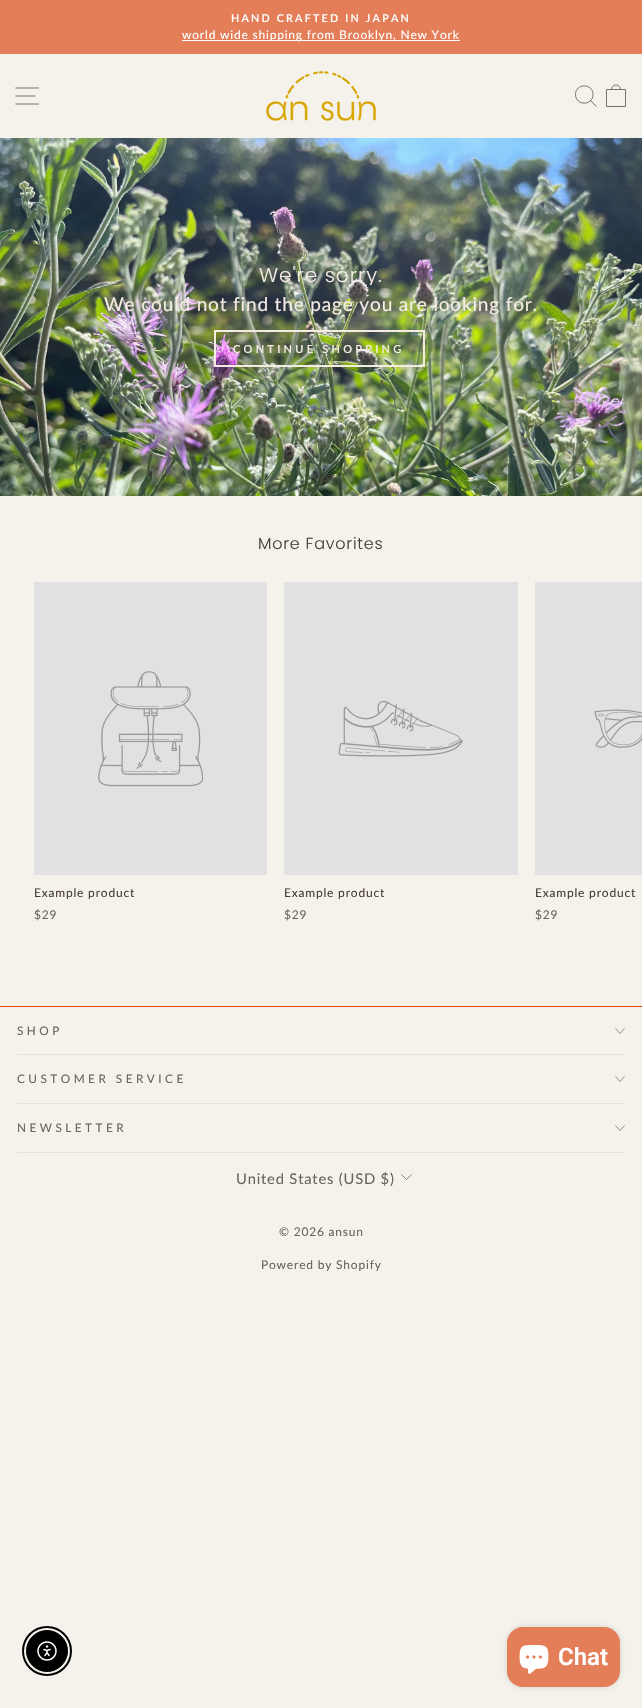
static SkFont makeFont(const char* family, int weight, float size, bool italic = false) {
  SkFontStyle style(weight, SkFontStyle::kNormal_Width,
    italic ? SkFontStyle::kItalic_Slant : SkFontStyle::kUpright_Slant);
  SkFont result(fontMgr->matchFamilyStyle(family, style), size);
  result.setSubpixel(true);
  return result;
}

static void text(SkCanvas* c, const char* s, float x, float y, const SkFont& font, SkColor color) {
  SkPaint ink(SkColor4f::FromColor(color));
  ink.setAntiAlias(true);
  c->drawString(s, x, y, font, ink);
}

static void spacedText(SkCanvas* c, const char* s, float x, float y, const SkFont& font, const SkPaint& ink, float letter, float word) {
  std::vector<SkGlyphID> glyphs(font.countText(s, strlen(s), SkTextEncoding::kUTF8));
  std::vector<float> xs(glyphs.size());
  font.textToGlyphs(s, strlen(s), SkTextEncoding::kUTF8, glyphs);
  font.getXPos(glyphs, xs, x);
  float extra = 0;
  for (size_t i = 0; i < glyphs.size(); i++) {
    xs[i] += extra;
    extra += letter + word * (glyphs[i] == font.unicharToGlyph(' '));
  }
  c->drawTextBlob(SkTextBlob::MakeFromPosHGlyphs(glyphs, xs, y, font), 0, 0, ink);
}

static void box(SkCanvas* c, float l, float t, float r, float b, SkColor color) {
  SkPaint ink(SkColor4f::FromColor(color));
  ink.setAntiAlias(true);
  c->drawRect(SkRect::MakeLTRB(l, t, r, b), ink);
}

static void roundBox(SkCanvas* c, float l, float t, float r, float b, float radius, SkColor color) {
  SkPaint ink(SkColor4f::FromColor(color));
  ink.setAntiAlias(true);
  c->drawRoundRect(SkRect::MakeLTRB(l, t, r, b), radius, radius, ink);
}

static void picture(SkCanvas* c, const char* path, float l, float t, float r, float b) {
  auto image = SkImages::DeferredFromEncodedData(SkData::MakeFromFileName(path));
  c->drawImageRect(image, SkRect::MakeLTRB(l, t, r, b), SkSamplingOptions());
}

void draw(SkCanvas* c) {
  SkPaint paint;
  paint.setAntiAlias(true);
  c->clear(0xfff5f1eb);
  box(c, 0, 0, 642, 54, 0xffe37e58);
  SkFont face1 = makeFont("Lato", 600, 10.75f);
  paint.setColor(0xffffffff);
  spacedText(c, "HAND CRAFTED IN JAPAN", 231, 22, face1, paint, 2.2f, 0);
  box(c, 182, 40, 460, 41, 0xffffffff);
  SkFont face2 = makeFont("Lato", 400, 12);
  spacedText(c, "world wide shipping from Brooklyn, New York", 182, 39, face2, paint, 0.8f, 0);
  paint.setStyle(SkPaint::kStroke_Style);
  paint.setStrokeWidth(0.9f);
  paint.setColor(0xff6a625d);
  c->drawPath(SkPathBuilder().moveTo(15.5f, 88).lineTo(39, 88).moveTo(15.5f, 96).lineTo(35.5f, 96).moveTo(15.5f, 104).lineTo(39, 104).detach(), paint);
  picture(c, "img_01.png", 266, 71, 376, 121);
  c->drawPath(SkPathBuilder().moveTo(593, 94.5f).cubicTo(593, 106, 575.5f, 106, 575.5f, 94.5f).cubicTo(575.5f, 83, 593, 83, 593, 94.5f).close().moveTo(596.5f, 106.5f).lineTo(590.5f, 100.5f).moveTo(606.5f, 89.5f).lineTo(625.5f, 89.5f).lineTo(625.5f, 106.5f).lineTo(606.5f, 106.5f).close().moveTo(611.5f, 89.5f).cubicTo(611.5f, 83.5f, 620.5f, 83.5f, 620.5f, 89.5f).detach(), paint);
  picture(c, "img_02.png", 0, 138, 642, 496);
  c->save();
  c->clipRect(SkRect::MakeLTRB(259, 265, 383, 285));
  SkFont face3 = makeFont("Poppins", 300, 20);
  paint.setStyle(SkPaint::kFill_Style);
  paint.setColor(0xfff4ebe3);
  spacedText(c, "We're sorry.", 259, 282, face3, paint, 1, 0);
  c->restore();
  SkFont face4 = makeFont("Lato", 400, 19.1f);
  spacedText(c, "We could not find the page you are looking for.", 104, 311, face4, paint, 0.8f, 0);
  paint.setStyle(SkPaint::kStroke_Style);
  paint.setStrokeWidth(2);
  c->drawRect(SkRect::MakeLTRB(215, 331, 424, 366), paint);
  SkFont face5 = makeFont("Lato", 600, 11);
  paint.setStyle(SkPaint::kFill_Style);
  spacedText(c, "CONTINUE SHOPPING", 233, 353, face5, paint, 3.25f, 0);
  SkFont face6 = makeFont("Poppins", 300, 16);
  paint.setColor(0xff4a3f35);
  spacedText(c, "More Favorites", 258, 549, face6, paint, 0.75f, 0);
  box(c, 34, 582, 267, 875, 0xffe1e1e1);
  picture(c, "img_03.png", 98, 671, 204, 787);
  spacedText(c, "Example product", 34, 897, face2, paint, 0.8f, 0);
  paint.setColor(0xff6a625d);
  spacedText(c, "$29", 34, 919, face2, paint, 0.8f, 0);
  box(c, 284, 582, 518, 875, 0xffe1e1e1);
  picture(c, "img_04.png", 338, 700, 463, 757);
  paint.setColor(0xff4a3f35);
  spacedText(c, "Example product", 284, 897, face2, paint, 0.8f, 0);
  paint.setColor(0xff6a625d);
  spacedText(c, "$29", 284, 919, face2, paint, 0.8f, 0);
  box(c, 535, 582, 642, 875, 0xffe1e1e1);
  picture(c, "img_05.png", 594, 709, 642, 748);
  paint.setColor(0xff4a3f35);
  spacedText(c, "Example product", 535, 897, face2, paint, 0.8f, 0);
  paint.setColor(0xff6a625d);
  spacedText(c, "$29", 535, 919, face2, paint, 0.8f, 0);
  box(c, 0, 1006, 642, 1007, 0xffe94709);
  SkFont face7 = makeFont("Lato", 400, 11.75f);
  spacedText(c, "SHOP", 17, 1035, face7, paint, 3.5f, 0);
  paint.setStyle(SkPaint::kStroke_Style);
  paint.setStrokeWidth(0.7f);
  c->drawPath(SkPathBuilder().moveTo(615.5f, 1028.5f).lineTo(620, 1033.5f).lineTo(624.5f, 1028.5f).detach(), paint);
  box(c, 17, 1054, 625, 1055, 0xffe4e0da);
  paint.setStyle(SkPaint::kFill_Style);
  spacedText(c, "CUSTOMER SERVICE", 17, 1083, face7, paint, 3.5f, 0);
  paint.setStyle(SkPaint::kStroke_Style);
  c->drawPath(SkPathBuilder().moveTo(615.5f, 1076.5f).lineTo(620, 1081.5f).lineTo(624.5f, 1076.5f).detach(), paint);
  box(c, 17, 1103, 625, 1104, 0xffe4e0da);
  paint.setStyle(SkPaint::kFill_Style);
  spacedText(c, "NEWSLETTER", 17, 1132, face7, paint, 3.5f, 0);
  paint.setStyle(SkPaint::kStroke_Style);
  c->drawPath(SkPathBuilder().moveTo(615.5f, 1125.5f).lineTo(620, 1130.5f).lineTo(624.5f, 1125.5f).detach(), paint);
  box(c, 17, 1152, 625, 1153, 0xffe4e0da);
  SkFont face8 = makeFont("Lato", 400, 14.75f);
  paint.setStyle(SkPaint::kFill_Style);
  spacedText(c, "United States (USD $)", 236, 1184, face8, paint, 0.8f, 0);
  paint.setStyle(SkPaint::kStroke_Style);
  paint.setStrokeWidth(0.8f);
  c->drawPath(SkPathBuilder().moveTo(401.5f, 1174.5f).lineTo(406.5f, 1179.5f).lineTo(411.5f, 1174.5f).detach(), paint);
  paint.setStyle(SkPaint::kFill_Style);
  spacedText(c, "© 2026 ansun", 279, 1236, face2, paint, 0.8f, 0);
  spacedText(c, "Powered by Shopify", 261, 1269, face2, paint, 0.8f, 0);
  paint.setStyle(SkPaint::kStroke_Style);
  paint.setStrokeWidth(2);
  paint.setColor(0xff000000);
  c->drawCircle(47, 1651, 24, paint);
  paint.setStyle(SkPaint::kFill_Style);
  c->drawCircle(47, 1651, 20.5f, paint);
  paint.setStyle(SkPaint::kStroke_Style);
  paint.setStrokeWidth(1);
  c->drawCircle(47, 1651, 20.5f, paint);
  picture(c, "img_06.png", 37, 1641, 57, 1661);
  paint.setStyle(SkPaint::kFill_Style);
  paint.setColor(0x26000000);
  paint.setMaskFilter(SkMaskFilter::MakeBlur(kNormal_SkBlurStyle, 2.5f));
  c->drawRoundRect(SkRect::MakeLTRB(507, 1627, 620, 1687), 16, 16, paint);
  paint.setMaskFilter(nullptr);
  roundBox(c, 507, 1627, 620, 1687, 16, 0xffe37e58);
  picture(c, "img_07.png", 519, 1645, 549, 1674);
  SkFont face9 = makeFont("Roboto", 600, 24);
  text(c, "Chat", 558, 1665, face9, 0xffffffff);
}
